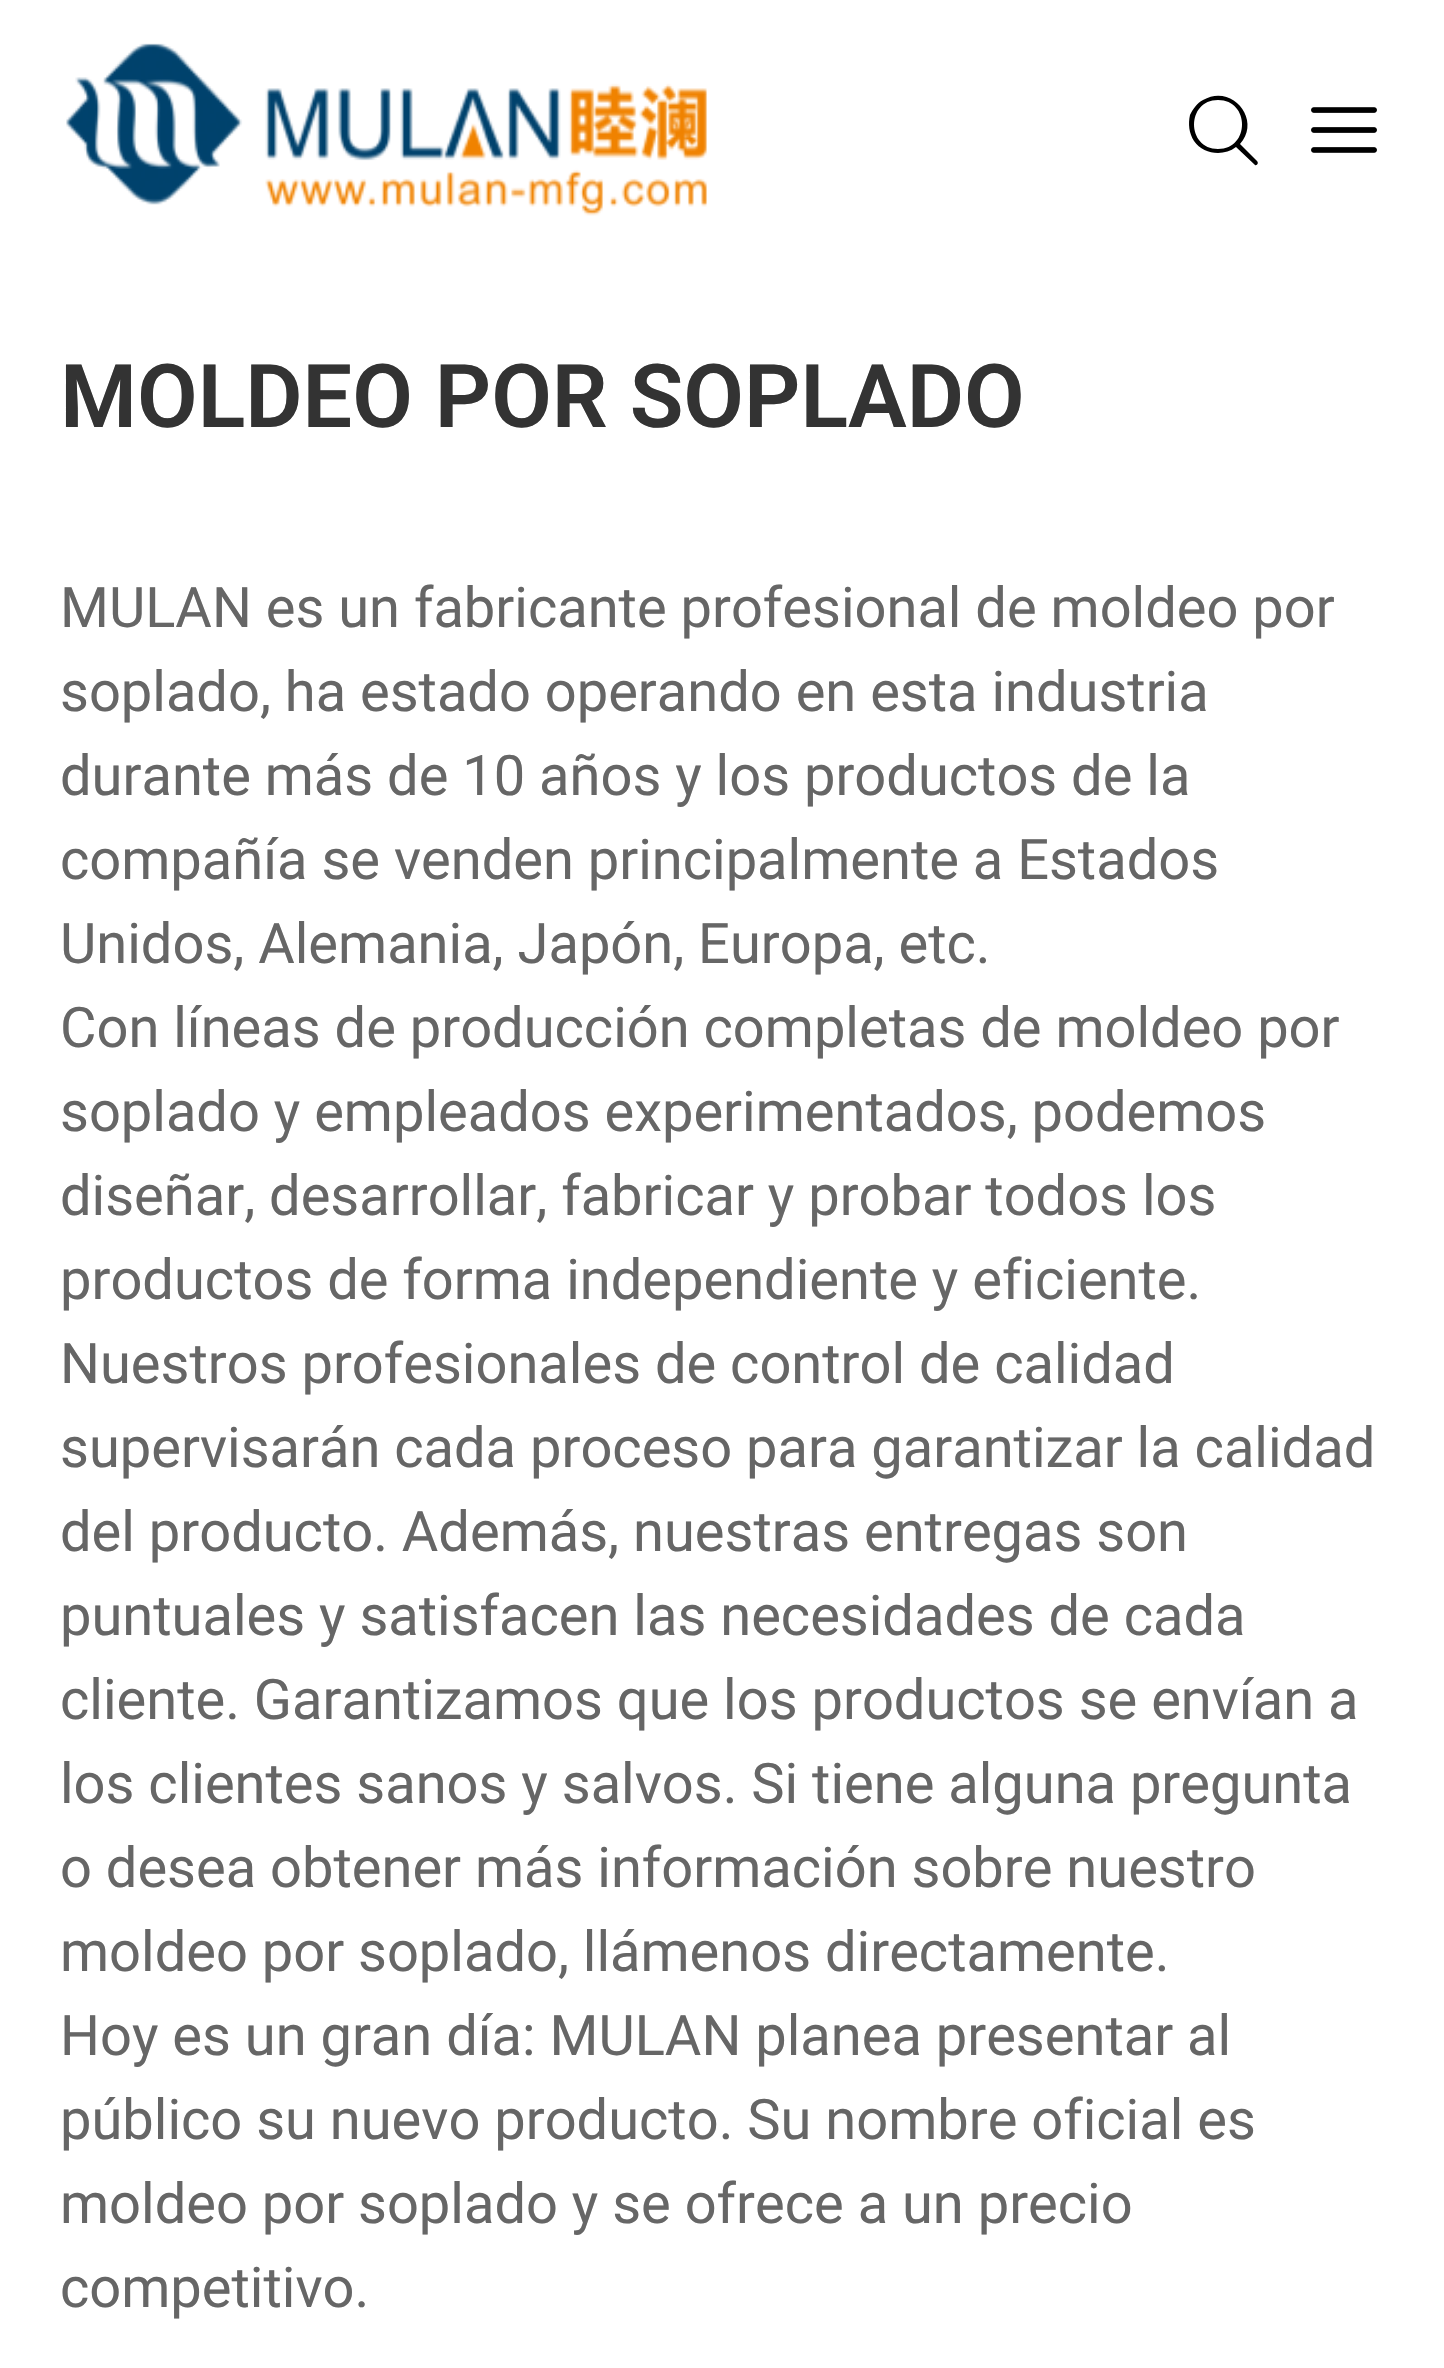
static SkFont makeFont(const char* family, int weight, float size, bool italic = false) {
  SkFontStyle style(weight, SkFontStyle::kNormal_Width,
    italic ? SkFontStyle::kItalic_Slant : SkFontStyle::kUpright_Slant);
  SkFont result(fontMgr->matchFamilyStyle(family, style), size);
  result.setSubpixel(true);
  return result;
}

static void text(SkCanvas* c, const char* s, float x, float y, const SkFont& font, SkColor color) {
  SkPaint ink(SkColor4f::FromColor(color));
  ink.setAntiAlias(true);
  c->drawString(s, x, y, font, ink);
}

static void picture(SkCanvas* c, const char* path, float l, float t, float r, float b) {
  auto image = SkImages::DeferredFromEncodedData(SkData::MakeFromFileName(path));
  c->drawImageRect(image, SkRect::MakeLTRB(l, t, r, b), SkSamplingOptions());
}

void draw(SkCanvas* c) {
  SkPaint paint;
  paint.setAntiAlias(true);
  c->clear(0xffffffff);
  picture(c, "img_01.png", 66, 43, 707, 216);
  paint.setColor(0xff000000);
  c->drawPath(SkPathBuilder().moveTo(1257, 161).lineTo(1240, 144).cubicTo(1262, 120, 1232, 83, 1203, 100).cubicTo(1197, 103, 1193, 109, 1190, 115).cubicTo(1188, 124, 1189, 133, 1194, 141).cubicTo(1203, 154, 1223, 157, 1236, 147).lineTo(1255, 165).cubicTo(1257, 166, 1259, 163, 1257, 161).close().moveTo(1218, 149).cubicTo(1186, 149, 1186, 100, 1218, 100).cubicTo(1250, 100, 1250, 149, 1218, 149).close().detach(), paint);
  picture(c, "img_02.png", 1311, 107, 1377, 153);
  SkFont face1 = makeFont("Roboto", 600, 88);
  text(c, "MOLDEO POR SOPLADO", 60, 427, face1, 0xff333333);
  SkFont face2 = makeFont("Roboto", 400, 56);
  text(c, "MULAN es un fabricante profesional de moldeo por", 60, 627, face2, 0xff666666);
  text(c, "soplado, ha estado operando en esta industria", 60, 711, face2, 0xff666666);
  text(c, "durante más de 10 años y los productos de la", 60, 795, face2, 0xff666666);
  text(c, "compañía se venden principalmente a Estados", 60, 879, face2, 0xff666666);
  text(c, "Unidos, Alemania, Japón, Europa, etc.", 60, 963, face2, 0xff666666);
  text(c, "Con líneas de producción completas de moldeo por", 60, 1047, face2, 0xff666666);
  text(c, "soplado y empleados experimentados, podemos", 60, 1131, face2, 0xff666666);
  text(c, "diseñar, desarrollar, fabricar y probar todos los", 60, 1215, face2, 0xff666666);
  text(c, "productos de forma independiente y eficiente.", 60, 1299, face2, 0xff666666);
  text(c, "Nuestros profesionales de control de calidad", 60, 1383, face2, 0xff666666);
  text(c, "supervisarán cada proceso para garantizar la calidad", 60, 1467, face2, 0xff666666);
  text(c, "del producto. Además, nuestras entregas son", 60, 1551, face2, 0xff666666);
  text(c, "puntuales y satisfacen las necesidades de cada", 60, 1635, face2, 0xff666666);
  text(c, "cliente. Garantizamos que los productos se envían a", 60, 1719, face2, 0xff666666);
  text(c, "los clientes sanos y salvos. Si tiene alguna pregunta", 60, 1803, face2, 0xff666666);
  text(c, "o desea obtener más información sobre nuestro", 60, 1887, face2, 0xff666666);
  text(c, "moldeo por soplado, llámenos directamente.", 60, 1971, face2, 0xff666666);
  text(c, "Hoy es un gran día: MULAN planea presentar al", 60, 2055, face2, 0xff666666);
  text(c, "público su nuevo producto. Su nombre oficial es", 60, 2139, face2, 0xff666666);
  text(c, "moldeo por soplado y se ofrece a un precio", 60, 2223, face2, 0xff666666);
  text(c, "competitivo.", 60, 2307, face2, 0xff666666);
}
